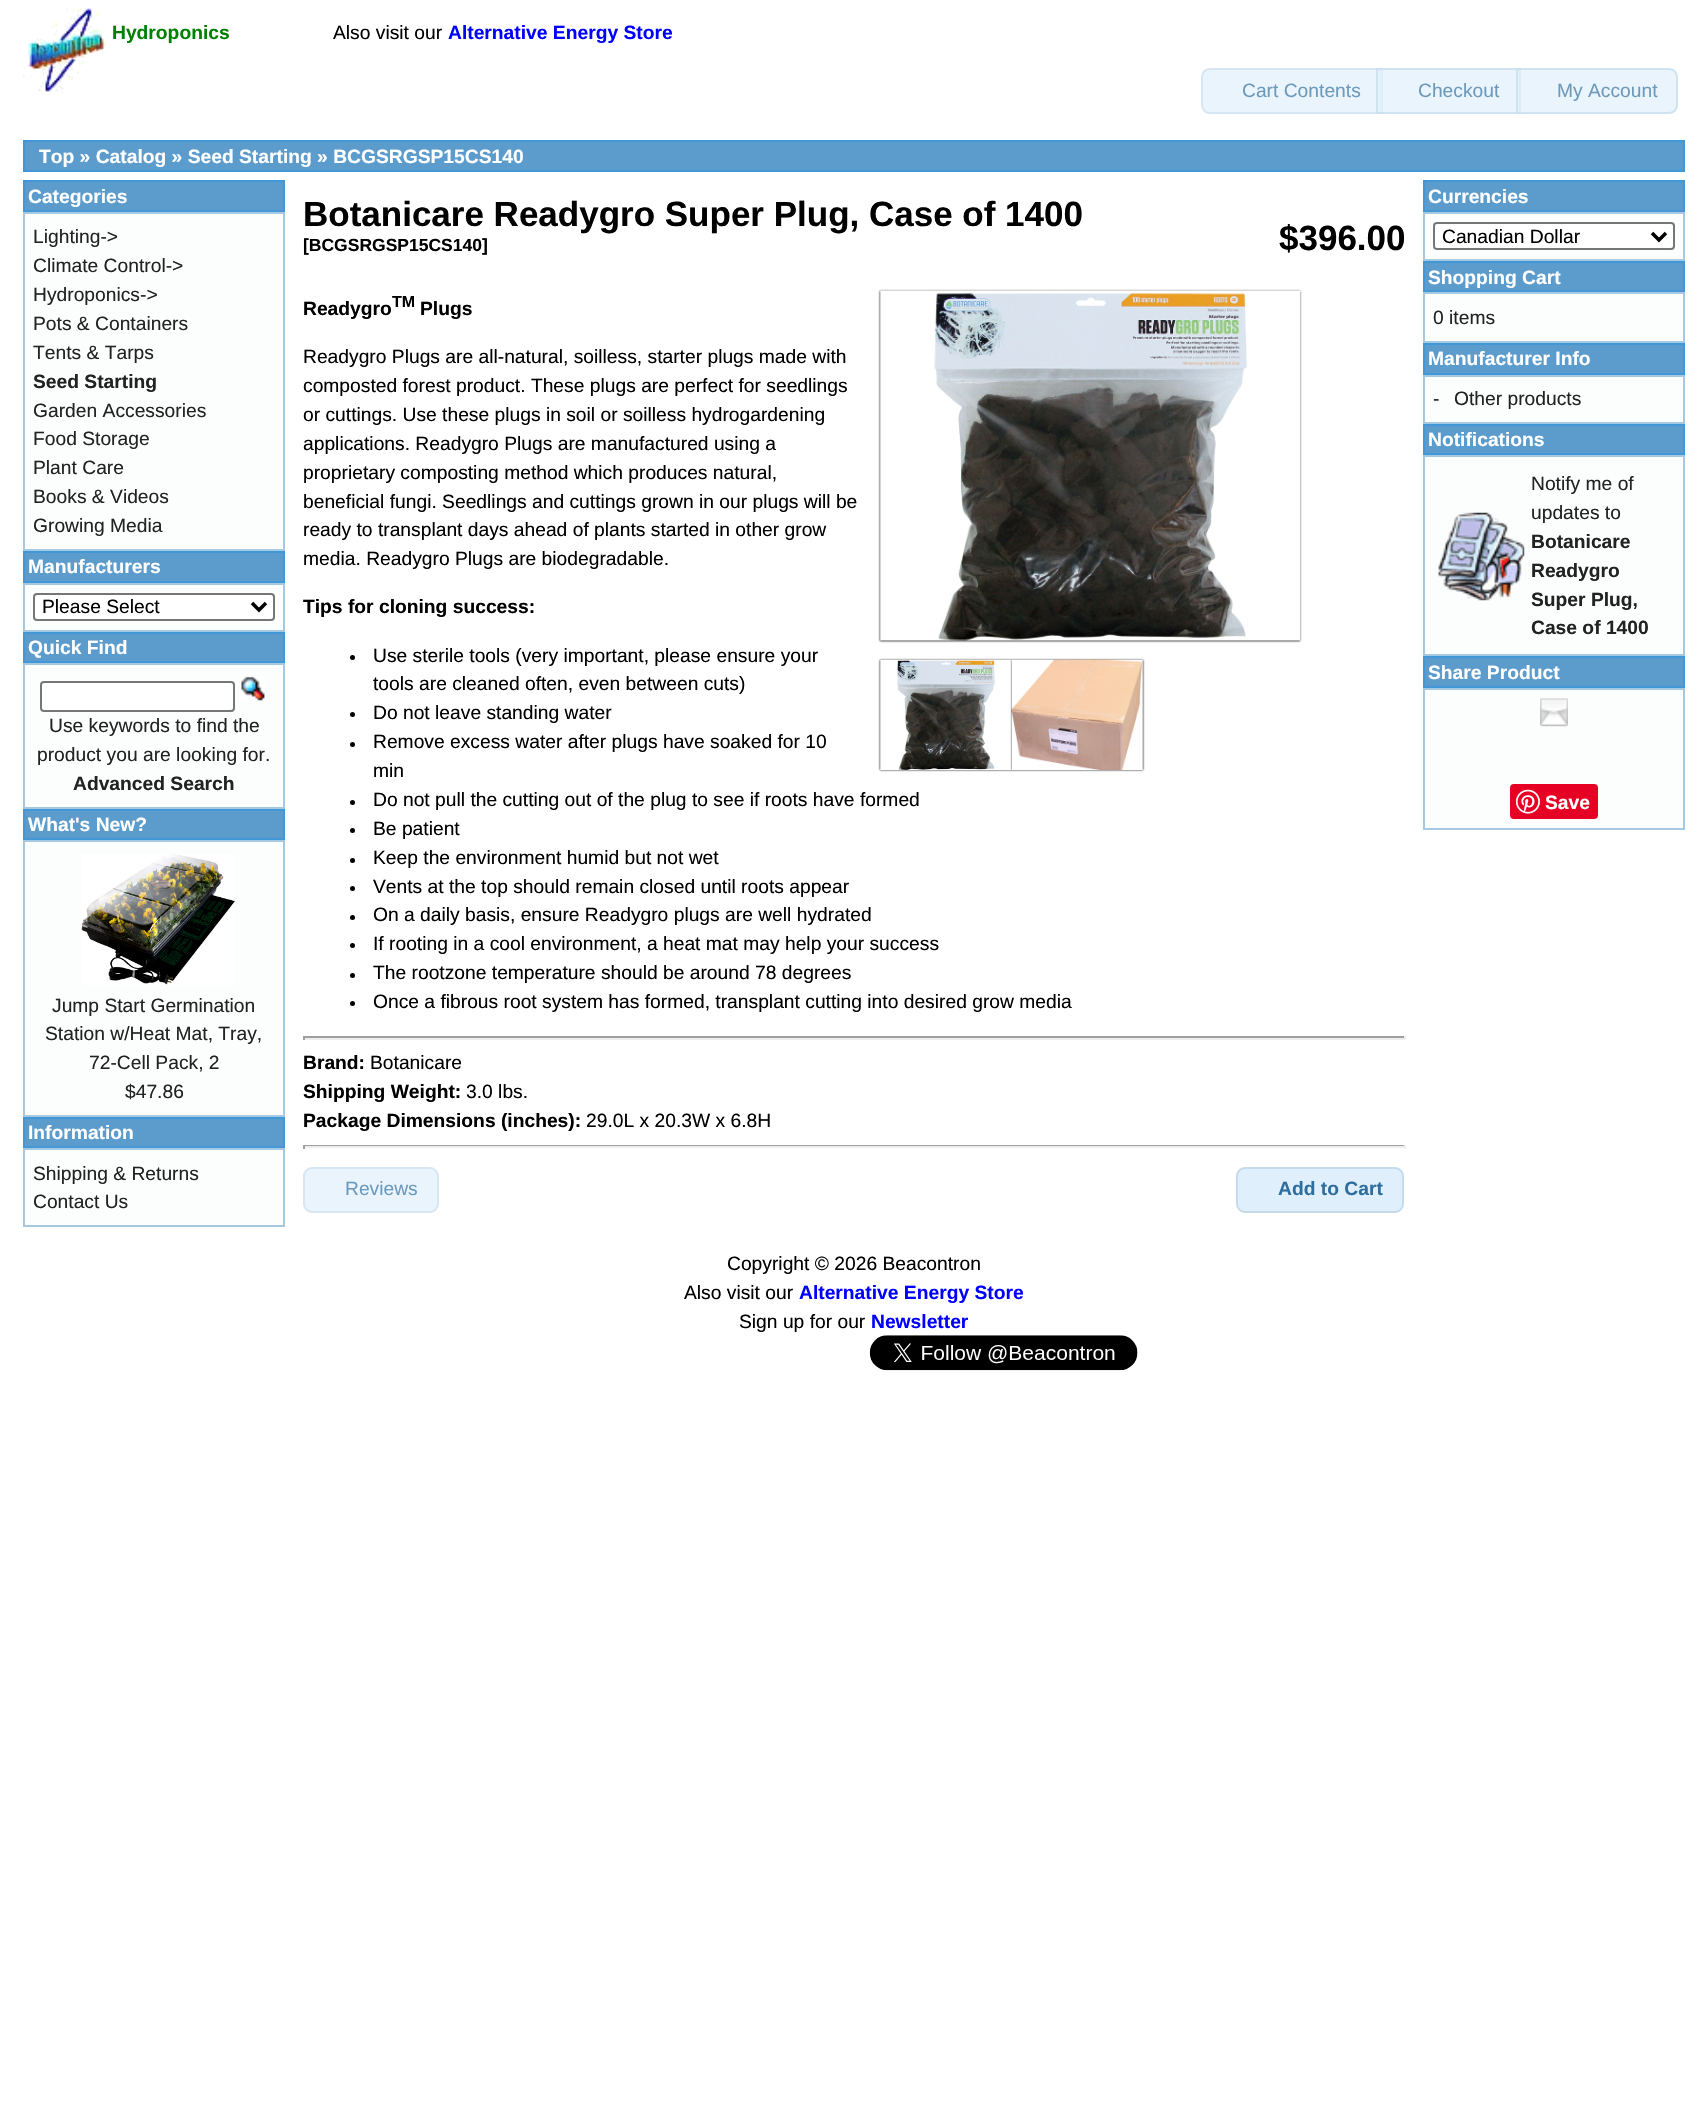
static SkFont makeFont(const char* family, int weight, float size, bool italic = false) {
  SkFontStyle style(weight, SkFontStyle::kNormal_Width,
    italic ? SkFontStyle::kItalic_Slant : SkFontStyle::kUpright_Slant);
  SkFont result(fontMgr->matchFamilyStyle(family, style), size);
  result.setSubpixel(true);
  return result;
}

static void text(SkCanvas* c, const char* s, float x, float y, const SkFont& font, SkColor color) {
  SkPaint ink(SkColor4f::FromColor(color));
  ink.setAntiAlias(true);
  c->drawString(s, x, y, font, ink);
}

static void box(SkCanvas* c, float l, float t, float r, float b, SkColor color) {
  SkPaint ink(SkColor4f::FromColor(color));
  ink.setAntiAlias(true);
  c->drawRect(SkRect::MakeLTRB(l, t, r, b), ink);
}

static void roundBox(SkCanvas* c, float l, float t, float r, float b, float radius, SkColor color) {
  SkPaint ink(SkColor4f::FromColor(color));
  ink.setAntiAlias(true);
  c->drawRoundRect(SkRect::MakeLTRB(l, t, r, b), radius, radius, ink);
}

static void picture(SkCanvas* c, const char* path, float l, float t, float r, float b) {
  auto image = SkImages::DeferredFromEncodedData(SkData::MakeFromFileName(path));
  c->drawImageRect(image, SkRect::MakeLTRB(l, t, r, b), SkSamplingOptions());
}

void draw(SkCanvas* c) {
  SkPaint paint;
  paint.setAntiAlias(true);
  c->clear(0xffffffff);
  picture(c, "img_01.png", 22, 8, 107, 93);
  SkFont face1 = makeFont("Liberation Sans", 700, 19.25f);
  text(c, "Hydroponics", 112, 39, face1, 0xff008000);
  SkFont face2 = makeFont("Liberation Sans", 400, 19.25f);
  text(c, "Also visit our", 333, 39, face2, 0xff000000);
  text(c, "Alternative Energy Store", 448, 39, face1, 0xff0000ff);
  paint.setColor(0xffe9f4fd);
  c->drawPath(SkPathBuilder().moveTo(1210, 69).lineTo(1382, 69).lineTo(1382, 113).lineTo(1210, 113).cubicTo(1205.5f, 113, 1202, 109.5f, 1202, 105).lineTo(1202, 77).cubicTo(1202, 72.5f, 1205.5f, 69, 1210, 69).close().detach(), paint);
  paint.setStyle(SkPaint::kStroke_Style);
  paint.setStrokeWidth(2);
  paint.setColor(0xffd6e6f2);
  c->drawPath(SkPathBuilder().moveTo(1210, 69).lineTo(1382, 69).lineTo(1382, 113).lineTo(1210, 113).cubicTo(1205.5f, 113, 1202, 109.5f, 1202, 105).lineTo(1202, 77).cubicTo(1202, 72.5f, 1205.5f, 69, 1210, 69).close().detach(), paint);
  text(c, "Cart Contents", 1242, 97, face2, 0xff6d9abb);
  box(c, 1376, 68, 1521, 114, 0xb3dfeffc);
  paint.setColor(0xb3c5dbec);
  c->drawRect(SkRect::MakeLTRB(1377, 69, 1520, 113), paint);
  text(c, "Checkout", 1418, 97, face2, 0xff6d9abb);
  paint.setStyle(SkPaint::kFill_Style);
  paint.setColor(0xb3dfeffc);
  c->drawPath(SkPathBuilder().moveTo(1516, 68).lineTo(1669, 68).cubicTo(1674, 68, 1678, 72, 1678, 77).lineTo(1678, 105).cubicTo(1678, 110, 1674, 114, 1669, 114).lineTo(1516, 114).close().detach(), paint);
  paint.setStyle(SkPaint::kStroke_Style);
  paint.setColor(0xb3c5dbec);
  c->drawPath(SkPathBuilder().moveTo(1517, 69).lineTo(1669, 69).cubicTo(1673.5f, 69, 1677, 72.5f, 1677, 77).lineTo(1677, 105).cubicTo(1677, 109.5f, 1673.5f, 113, 1669, 113).lineTo(1517, 113).close().detach(), paint);
  text(c, "My Account", 1557, 97, face2, 0xff6d9abb);
  paint.setStyle(SkPaint::kFill_Style);
  paint.setColor(0xff5c9ccc);
  c->drawRect(SkRect::MakeLTRB(24, 141, 1684, 171), paint);
  paint.setStyle(SkPaint::kStroke_Style);
  paint.setColor(0xff4297d7);
  c->drawRect(SkRect::MakeLTRB(24, 141, 1684, 171), paint);
  text(c, "Top » Catalog » Seed Starting » BCGSRGSP15CS140", 39, 163, face1, 0xffffffff);
  paint.setStyle(SkPaint::kFill_Style);
  paint.setColor(0xff5c9ccc);
  c->drawRect(SkRect::MakeLTRB(24, 181, 284, 211), paint);
  paint.setStyle(SkPaint::kStroke_Style);
  paint.setColor(0xff4297d7);
  c->drawRect(SkRect::MakeLTRB(24, 181, 284, 211), paint);
  text(c, "Categories", 28, 203, face1, 0xffffffff);
  paint.setStyle(SkPaint::kFill_Style);
  paint.setColor(0xfffcfdfd);
  c->drawRect(SkRect::MakeLTRB(24, 213, 284, 550), paint);
  paint.setStyle(SkPaint::kStroke_Style);
  paint.setColor(0xffa6c9e2);
  c->drawRect(SkRect::MakeLTRB(24, 213, 284, 550), paint);
  text(c, "Lighting->", 33, 243, face2, 0xff222222);
  text(c, "Climate Control->", 33, 272, face2, 0xff222222);
  text(c, "Hydroponics->", 33, 301, face2, 0xff222222);
  text(c, "Pots & Containers", 33, 330, face2, 0xff222222);
  text(c, "Tents & Tarps", 33, 359, face2, 0xff222222);
  text(c, "Seed Starting", 33, 388, face1, 0xff222222);
  text(c, "Garden Accessories", 33, 417, face2, 0xff222222);
  text(c, "Food Storage", 33, 445, face2, 0xff222222);
  text(c, "Plant Care", 33, 474, face2, 0xff222222);
  text(c, "Books & Videos", 33, 503, face2, 0xff222222);
  text(c, "Growing Media", 33, 532, face2, 0xff222222);
  paint.setStyle(SkPaint::kFill_Style);
  paint.setColor(0xff5c9ccc);
  c->drawRect(SkRect::MakeLTRB(24, 552, 284, 582), paint);
  paint.setStyle(SkPaint::kStroke_Style);
  paint.setColor(0xff4297d7);
  c->drawRect(SkRect::MakeLTRB(24, 552, 284, 582), paint);
  text(c, "Manufacturers", 28, 573, face1, 0xffffffff);
  paint.setStyle(SkPaint::kFill_Style);
  paint.setColor(0xfffcfdfd);
  c->drawRect(SkRect::MakeLTRB(24, 584, 284, 631), paint);
  paint.setStyle(SkPaint::kStroke_Style);
  paint.setColor(0xffa6c9e2);
  c->drawRect(SkRect::MakeLTRB(24, 584, 284, 631), paint);
  paint.setStyle(SkPaint::kFill_Style);
  paint.setColor(0xffffffff);
  c->drawRoundRect(SkRect::MakeLTRB(34, 594, 274, 620), 3, 3, paint);
  paint.setStyle(SkPaint::kStroke_Style);
  paint.setColor(0xff767676);
  c->drawRoundRect(SkRect::MakeLTRB(34, 594, 274, 620), 3, 3, paint);
  paint.setStrokeWidth(3.5f);
  paint.setColor(0xff000000);
  c->drawPath(SkPathBuilder().moveTo(252, 603).lineTo(259, 610).lineTo(266, 603).detach(), paint);
  text(c, "Please Select", 42, 613, face2, 0xff000000);
  paint.setStyle(SkPaint::kFill_Style);
  paint.setColor(0xff5c9ccc);
  c->drawRect(SkRect::MakeLTRB(24, 633, 284, 662), paint);
  paint.setStyle(SkPaint::kStroke_Style);
  paint.setStrokeWidth(2);
  paint.setColor(0xff4297d7);
  c->drawRect(SkRect::MakeLTRB(24, 633, 284, 662), paint);
  text(c, "Quick Find", 28, 654, face1, 0xffffffff);
  paint.setStyle(SkPaint::kFill_Style);
  paint.setColor(0xfffcfdfd);
  c->drawRect(SkRect::MakeLTRB(24, 664, 284, 808), paint);
  paint.setStyle(SkPaint::kStroke_Style);
  paint.setColor(0xffa6c9e2);
  c->drawRect(SkRect::MakeLTRB(24, 664, 284, 808), paint);
  paint.setStyle(SkPaint::kFill_Style);
  paint.setColor(0xffffffff);
  c->drawRoundRect(SkRect::MakeLTRB(41, 682, 234, 711), 3, 3, paint);
  paint.setStyle(SkPaint::kStroke_Style);
  paint.setColor(0xff767676);
  c->drawRoundRect(SkRect::MakeLTRB(41, 682, 234, 711), 3, 3, paint);
  picture(c, "img_02.png", 241, 676, 265, 701);
  text(c, "Use keywords to find the", 49, 732, face2, 0xff222222);
  text(c, "product you are looking for.", 37, 761, face2, 0xff222222);
  text(c, "Advanced Search", 73, 790, face1, 0xff222222);
  paint.setStyle(SkPaint::kFill_Style);
  paint.setColor(0xff5c9ccc);
  c->drawRect(SkRect::MakeLTRB(24, 810, 284, 839), paint);
  paint.setStyle(SkPaint::kStroke_Style);
  paint.setColor(0xff4297d7);
  c->drawRect(SkRect::MakeLTRB(24, 810, 284, 839), paint);
  text(c, "What's New?", 28, 831, face1, 0xffffffff);
  paint.setStyle(SkPaint::kFill_Style);
  paint.setColor(0xfffcfdfd);
  c->drawRect(SkRect::MakeLTRB(24, 841, 284, 1116), paint);
  paint.setStyle(SkPaint::kStroke_Style);
  paint.setColor(0xffa6c9e2);
  c->drawRect(SkRect::MakeLTRB(24, 841, 284, 1116), paint);
  picture(c, "img_03.png", 81, 854, 235, 985);
  text(c, "Jump Start Germination", 52, 1012, face2, 0xff222222);
  text(c, "Station w/Heat Mat, Tray,", 45, 1040, face2, 0xff222222);
  text(c, "72-Cell Pack, 2", 89, 1069, face2, 0xff222222);
  text(c, "$47.86", 125, 1098, face2, 0xff222222);
  paint.setStyle(SkPaint::kFill_Style);
  paint.setColor(0xff5c9ccc);
  c->drawRect(SkRect::MakeLTRB(24, 1118, 284, 1147), paint);
  paint.setStyle(SkPaint::kStroke_Style);
  paint.setColor(0xff4297d7);
  c->drawRect(SkRect::MakeLTRB(24, 1118, 284, 1147), paint);
  text(c, "Information", 28, 1139, face1, 0xffffffff);
  paint.setStyle(SkPaint::kFill_Style);
  paint.setColor(0xfffcfdfd);
  c->drawRect(SkRect::MakeLTRB(24, 1149, 284, 1226), paint);
  paint.setStyle(SkPaint::kStroke_Style);
  paint.setColor(0xffa6c9e2);
  c->drawRect(SkRect::MakeLTRB(24, 1149, 284, 1226), paint);
  text(c, "Shipping & Returns", 33, 1180, face2, 0xff222222);
  text(c, "Contact Us", 33, 1208, face2, 0xff222222);
  SkFont face3 = makeFont("Liberation Sans", 700, 35);
  text(c, "Botanicare Readygro Super Plug, Case of 1400", 303, 226, face3, 0xff000000);
  SkFont face4 = makeFont("Liberation Sans", 700, 17.5f);
  text(c, "[BCGSRGSP15CS140]", 303, 251, face4, 0xff000000);
  text(c, "$396.00", 1279, 250, face3, 0xff000000);
  text(c, "Readygro", 303, 315, face1, 0xff000000);
  SkFont face5 = makeFont("Liberation Sans", 700, 16);
  text(c, "TM", 392, 307, face5, 0xff000000);
  text(c, "Plugs", 420, 315, face1, 0xff000000);
  text(c, "Readygro Plugs are all-natural, soilless, starter plugs made with", 303, 363, face2, 0xff000000);
  text(c, "composted forest product. These plugs are perfect for seedlings", 303, 392, face2, 0xff000000);
  text(c, "or cuttings. Use these plugs in soil or soilless hydrogardening", 303, 421, face2, 0xff000000);
  text(c, "applications. Readygro Plugs are manufactured using a", 303, 450, face2, 0xff000000);
  text(c, "proprietary composting method which produces natural,", 303, 479, face2, 0xff000000);
  text(c, "beneficial fungi. Seedlings and cuttings grown in our plugs will be", 303, 508, face2, 0xff000000);
  text(c, "ready to transplant days ahead of plants started in other grow", 303, 536, face2, 0xff000000);
  text(c, "media. Readygro Plugs are biodegradable.", 303, 565, face2, 0xff000000);
  text(c, "Tips for cloning success:", 303, 613, face1, 0xff000000);
  paint.setStyle(SkPaint::kFill_Style);
  paint.setColor(0xff000000);
  c->drawCircle(352.5f, 657.5f, 2.5f, paint);
  text(c, "Use sterile tools (very important, please ensure your", 373, 662, face2, 0xff000000);
  text(c, "tools are cleaned often, even between cuts)", 373, 690, face2, 0xff000000);
  c->drawCircle(352.5f, 714.5f, 2.5f, paint);
  text(c, "Do not leave standing water", 373, 719, face2, 0xff000000);
  c->drawCircle(352.5f, 744.5f, 2.5f, paint);
  text(c, "Remove excess water after plugs have soaked for 10", 373, 748, face2, 0xff000000);
  text(c, "min", 373, 777, face2, 0xff000000);
  c->drawCircle(352.5f, 802.5f, 2.5f, paint);
  text(c, "Do not pull the cutting out of the plug to see if roots have formed", 373, 806, face2, 0xff000000);
  c->drawCircle(352.5f, 830.5f, 2.5f, paint);
  text(c, "Be patient", 373, 835, face2, 0xff000000);
  c->drawCircle(352.5f, 860.5f, 2.5f, paint);
  text(c, "Keep the environment humid but not wet", 373, 864, face2, 0xff000000);
  c->drawCircle(352.5f, 888.5f, 2.5f, paint);
  text(c, "Vents at the top should remain closed until roots appear", 373, 893, face2, 0xff000000);
  c->drawCircle(352.5f, 917.5f, 2.5f, paint);
  text(c, "On a daily basis, ensure Readygro plugs are well hydrated", 373, 921, face2, 0xff000000);
  c->drawCircle(352.5f, 945.5f, 2.5f, paint);
  text(c, "If rooting in a cool environment, a heat mat may help your success", 373, 950, face2, 0xff000000);
  c->drawCircle(352.5f, 975.5f, 2.5f, paint);
  text(c, "The rootzone temperature should be around 78 degrees", 373, 979, face2, 0xff000000);
  c->drawCircle(352.5f, 1003.5f, 2.5f, paint);
  text(c, "Once a fibrous root system has formed, transplant cutting into desired grow media", 373, 1008, face2, 0xff000000);
  paint.setMaskFilter(SkMaskFilter::MakeBlur(kNormal_SkBlurStyle, 1));
  c->drawRect(SkRect::MakeLTRB(880, 291, 1300, 641), paint);
  paint.setMaskFilter(nullptr);
  picture(c, "img_04.png", 880, 290, 1301, 641);
  paint.setMaskFilter(SkMaskFilter::MakeBlur(kNormal_SkBlurStyle, 1));
  c->drawRect(SkRect::MakeLTRB(880, 660, 1012, 770), paint);
  paint.setMaskFilter(nullptr);
  picture(c, "img_05.png", 880, 659, 1012, 770);
  paint.setMaskFilter(SkMaskFilter::MakeBlur(kNormal_SkBlurStyle, 1));
  c->drawRect(SkRect::MakeLTRB(1012, 660, 1143, 770), paint);
  paint.setMaskFilter(nullptr);
  picture(c, "img_06.png", 1011, 659, 1143, 770);
  box(c, 303, 1036, 1405, 1038, 0xff9f9f9f);
  box(c, 1404, 1036, 1406, 1040, 0xffeeeeee);
  box(c, 303, 1038, 1405, 1040, 0xffeeeeee);
  box(c, 303, 1036, 305, 1040, 0xff9f9f9f);
  text(c, "Brand:", 303, 1069, face1, 0xff000000);
  text(c, "Botanicare", 370, 1069, face2, 0xff000000);
  text(c, "Shipping Weight:", 303, 1098, face1, 0xff000000);
  text(c, "3.0 lbs.", 466, 1098, face2, 0xff000000);
  text(c, "Package Dimensions (inches):", 303, 1127, face1, 0xff000000);
  text(c, "29.0L x 20.3W x 6.8H", 586, 1127, face2, 0xff000000);
  box(c, 303, 1145, 1405, 1146, 0xff9f9f9f);
  box(c, 1404, 1145, 1406, 1149, 0xffeeeeee);
  box(c, 303, 1146, 1405, 1148, 0xffeeeeee);
  box(c, 303, 1145, 305, 1149, 0xff9f9f9f);
  paint.setColor(0xffe9f4fd);
  c->drawRoundRect(SkRect::MakeLTRB(304, 1168, 438, 1212), 8, 8, paint);
  paint.setStyle(SkPaint::kStroke_Style);
  paint.setColor(0xffd6e6f2);
  c->drawRoundRect(SkRect::MakeLTRB(304, 1168, 438, 1212), 8, 8, paint);
  text(c, "Reviews", 345, 1195, face2, 0xff6d9abb);
  paint.setStyle(SkPaint::kFill_Style);
  paint.setColor(0xffdfeffc);
  c->drawRoundRect(SkRect::MakeLTRB(1237, 1168, 1403, 1212), 8, 8, paint);
  paint.setStyle(SkPaint::kStroke_Style);
  paint.setColor(0xffc5dbec);
  c->drawRoundRect(SkRect::MakeLTRB(1237, 1168, 1403, 1212), 8, 8, paint);
  text(c, "Add to Cart", 1278, 1195, face1, 0xff2e6e9e);
  paint.setStyle(SkPaint::kFill_Style);
  paint.setColor(0xff5c9ccc);
  c->drawRect(SkRect::MakeLTRB(1424, 181, 1684, 211), paint);
  paint.setStyle(SkPaint::kStroke_Style);
  paint.setColor(0xff4297d7);
  c->drawRect(SkRect::MakeLTRB(1424, 181, 1684, 211), paint);
  text(c, "Currencies", 1428, 203, face1, 0xffffffff);
  paint.setStyle(SkPaint::kFill_Style);
  paint.setColor(0xfffcfdfd);
  c->drawRect(SkRect::MakeLTRB(1424, 213, 1684, 260), paint);
  paint.setStyle(SkPaint::kStroke_Style);
  paint.setColor(0xffa6c9e2);
  c->drawRect(SkRect::MakeLTRB(1424, 213, 1684, 260), paint);
  paint.setStyle(SkPaint::kFill_Style);
  paint.setColor(0xffffffff);
  c->drawRoundRect(SkRect::MakeLTRB(1434, 223, 1674, 249), 3, 3, paint);
  paint.setStyle(SkPaint::kStroke_Style);
  paint.setColor(0xff767676);
  c->drawRoundRect(SkRect::MakeLTRB(1434, 223, 1674, 249), 3, 3, paint);
  paint.setStrokeWidth(3.5f);
  paint.setColor(0xff000000);
  c->drawPath(SkPathBuilder().moveTo(1652, 233).lineTo(1659, 240).lineTo(1666, 233).detach(), paint);
  text(c, "Canadian Dollar", 1442, 243, face2, 0xff000000);
  paint.setStyle(SkPaint::kFill_Style);
  paint.setColor(0xff5c9ccc);
  c->drawRect(SkRect::MakeLTRB(1424, 262, 1684, 291), paint);
  paint.setStyle(SkPaint::kStroke_Style);
  paint.setStrokeWidth(2);
  paint.setColor(0xff4297d7);
  c->drawRect(SkRect::MakeLTRB(1424, 262, 1684, 291), paint);
  text(c, "Shopping Cart", 1428, 284, face1, 0xffffffff);
  paint.setStyle(SkPaint::kFill_Style);
  paint.setColor(0xfffcfdfd);
  c->drawRect(SkRect::MakeLTRB(1424, 293, 1684, 342), paint);
  paint.setStyle(SkPaint::kStroke_Style);
  paint.setColor(0xffa6c9e2);
  c->drawRect(SkRect::MakeLTRB(1424, 293, 1684, 342), paint);
  text(c, "0 items", 1433, 324, face2, 0xff222222);
  paint.setStyle(SkPaint::kFill_Style);
  paint.setColor(0xff5c9ccc);
  c->drawRect(SkRect::MakeLTRB(1424, 344, 1684, 374), paint);
  paint.setStyle(SkPaint::kStroke_Style);
  paint.setColor(0xff4297d7);
  c->drawRect(SkRect::MakeLTRB(1424, 344, 1684, 374), paint);
  text(c, "Manufacturer Info", 1428, 365, face1, 0xffffffff);
  paint.setStyle(SkPaint::kFill_Style);
  paint.setColor(0xfffcfdfd);
  c->drawRect(SkRect::MakeLTRB(1424, 376, 1684, 423), paint);
  paint.setStyle(SkPaint::kStroke_Style);
  paint.setColor(0xffa6c9e2);
  c->drawRect(SkRect::MakeLTRB(1424, 376, 1684, 423), paint);
  text(c, "-", 1433, 405, face2, 0xff222222);
  text(c, "Other products", 1454, 405, face2, 0xff222222);
  paint.setStyle(SkPaint::kFill_Style);
  paint.setColor(0xff5c9ccc);
  c->drawRect(SkRect::MakeLTRB(1424, 425, 1684, 454), paint);
  paint.setStyle(SkPaint::kStroke_Style);
  paint.setColor(0xff4297d7);
  c->drawRect(SkRect::MakeLTRB(1424, 425, 1684, 454), paint);
  text(c, "Notifications", 1428, 446, face1, 0xffffffff);
  paint.setStyle(SkPaint::kFill_Style);
  paint.setColor(0xfffcfdfd);
  c->drawRect(SkRect::MakeLTRB(1424, 456, 1684, 655), paint);
  paint.setStyle(SkPaint::kStroke_Style);
  paint.setColor(0xffa6c9e2);
  c->drawRect(SkRect::MakeLTRB(1424, 456, 1684, 655), paint);
  picture(c, "img_07.png", 1438, 512, 1525, 601);
  text(c, "Notify me of", 1531, 490, face2, 0xff222222);
  text(c, "updates to", 1531, 519, face2, 0xff222222);
  text(c, "Botanicare", 1531, 548, face1, 0xff222222);
  text(c, "Readygro", 1531, 577, face1, 0xff222222);
  text(c, "Super Plug,", 1531, 606, face1, 0xff222222);
  text(c, "Case of 1400", 1531, 634, face1, 0xff222222);
  paint.setStyle(SkPaint::kFill_Style);
  paint.setColor(0xff5c9ccc);
  c->drawRect(SkRect::MakeLTRB(1424, 657, 1684, 687), paint);
  paint.setStyle(SkPaint::kStroke_Style);
  paint.setColor(0xff4297d7);
  c->drawRect(SkRect::MakeLTRB(1424, 657, 1684, 687), paint);
  text(c, "Share Product", 1428, 679, face1, 0xffffffff);
  paint.setStyle(SkPaint::kFill_Style);
  paint.setColor(0xfffcfdfd);
  c->drawRect(SkRect::MakeLTRB(1424, 689, 1684, 829), paint);
  paint.setStyle(SkPaint::kStroke_Style);
  paint.setColor(0xffa6c9e2);
  c->drawRect(SkRect::MakeLTRB(1424, 689, 1684, 829), paint);
  picture(c, "img_08.png", 1540, 698, 1568, 727);
  roundBox(c, 1510, 784, 1598, 819, 4, 0xffe60023);
  picture(c, "img_09.png", 1516, 789, 1540, 814);
  text(c, "Save", 1545, 809, face1, 0xffffffff);
  text(c, "Copyright © 2026 Beacontron", 727, 1270, face2, 0xff000000);
  text(c, "Also visit our", 684, 1299, face2, 0xff000000);
  text(c, "Alternative Energy Store", 799, 1299, face1, 0xff0000ff);
  text(c, "Sign up for our", 739, 1328, face2, 0xff000000);
  text(c, "Newsletter", 871, 1328, face1, 0xff0000ff);
  picture(c, "img_10.png", 869, 1335, 1138, 1371);
}
